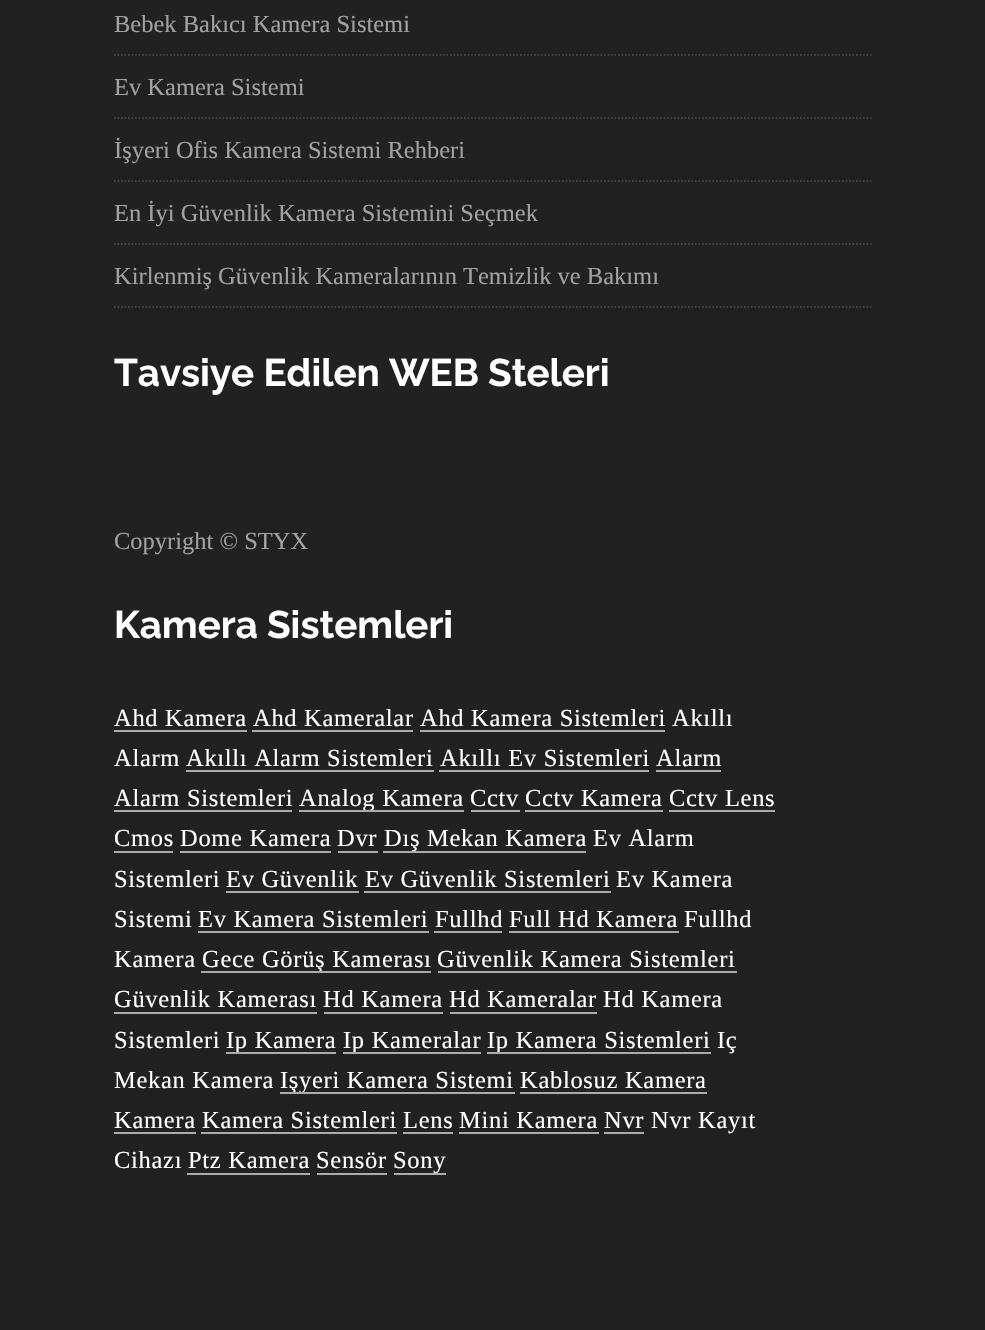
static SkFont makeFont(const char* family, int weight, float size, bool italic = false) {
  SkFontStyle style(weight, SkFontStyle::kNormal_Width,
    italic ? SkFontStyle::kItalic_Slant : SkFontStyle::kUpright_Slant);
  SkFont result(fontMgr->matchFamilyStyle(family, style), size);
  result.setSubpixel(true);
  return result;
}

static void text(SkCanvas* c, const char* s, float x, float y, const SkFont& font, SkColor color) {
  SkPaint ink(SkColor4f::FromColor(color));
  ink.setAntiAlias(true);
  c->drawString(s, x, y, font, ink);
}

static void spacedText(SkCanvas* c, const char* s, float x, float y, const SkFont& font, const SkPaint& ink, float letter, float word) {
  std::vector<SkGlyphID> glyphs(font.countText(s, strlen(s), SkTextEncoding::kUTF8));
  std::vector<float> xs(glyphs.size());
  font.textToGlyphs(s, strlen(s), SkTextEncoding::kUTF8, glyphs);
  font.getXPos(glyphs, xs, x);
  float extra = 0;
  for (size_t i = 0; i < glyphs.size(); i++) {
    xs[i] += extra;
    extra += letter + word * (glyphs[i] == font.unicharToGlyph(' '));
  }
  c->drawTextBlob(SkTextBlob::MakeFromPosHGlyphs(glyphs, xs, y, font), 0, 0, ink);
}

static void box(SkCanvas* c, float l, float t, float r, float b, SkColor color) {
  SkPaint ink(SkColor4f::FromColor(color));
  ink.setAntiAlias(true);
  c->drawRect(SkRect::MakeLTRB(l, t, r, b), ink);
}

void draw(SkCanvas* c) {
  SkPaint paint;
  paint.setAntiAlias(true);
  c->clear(0xff212121);
  paint.setStyle(SkPaint::kStroke_Style);
  paint.setStrokeWidth(1.8f);
  paint.setColor(0xff404040);
  paint.setPathEffect(SkDashPathEffect::Make({{1.75f, 1.75f}}, 0));
  c->drawPath(SkPathBuilder().moveTo(114, 55).lineTo(871.5f, 55).detach(), paint);
  paint.setPathEffect(nullptr);
  SkFont face1 = makeFont("Liberation Serif", 400, 24.5f);
  text(c, "Bebek Bakıcı Kamera Sistemi", 114, 32, face1, 0xffa2a2a2);
  paint.setPathEffect(SkDashPathEffect::Make({{1.75f, 1.75f}}, 0));
  c->drawPath(SkPathBuilder().moveTo(114, 118).lineTo(871.5f, 118).detach(), paint);
  paint.setPathEffect(nullptr);
  text(c, "Ev Kamera Sistemi", 114, 95, face1, 0xffa2a2a2);
  paint.setPathEffect(SkDashPathEffect::Make({{1.75f, 1.75f}}, 0));
  c->drawPath(SkPathBuilder().moveTo(114, 181).lineTo(871.5f, 181).detach(), paint);
  paint.setPathEffect(nullptr);
  text(c, "İşyeri Ofis Kamera Sistemi Rehberi", 114, 158, face1, 0xffa2a2a2);
  paint.setPathEffect(SkDashPathEffect::Make({{1.75f, 1.75f}}, 0));
  c->drawPath(SkPathBuilder().moveTo(114, 244).lineTo(871.5f, 244).detach(), paint);
  paint.setPathEffect(nullptr);
  text(c, "En İyi Güvenlik Kamera Sistemini Seçmek", 114, 221, face1, 0xffa2a2a2);
  paint.setPathEffect(SkDashPathEffect::Make({{1.75f, 1.75f}}, 0));
  c->drawPath(SkPathBuilder().moveTo(114, 307).lineTo(871.5f, 307).detach(), paint);
  paint.setPathEffect(nullptr);
  text(c, "Kirlenmiş Güvenlik Kameralarının Temizlik ve Bakımı", 114, 284, face1, 0xffa2a2a2);
  SkFont face2 = makeFont("Raleway", 700, 38.5f);
  text(c, "Tavsiye Edilen WEB Steleri", 114, 386, face2, 0xffffffff);
  text(c, "Copyright © STYX", 114, 549, face1, 0xffa2a2a2);
  text(c, "Kamera Sistemleri", 114, 638, face2, 0xffffffff);
  paint.setStyle(SkPaint::kFill_Style);
  paint.setColor(0xffffffff);
  spacedText(c, "Ahd Kamera", 114, 726, face1, paint, 0.7f, 0);
  box(c, 114, 730, 247, 732, 0xffacacac);
  spacedText(c, "Ahd Kameralar", 253, 726, face1, paint, 0.7f, 0);
  box(c, 252, 730, 413, 732, 0xffacacac);
  spacedText(c, "Ahd Kamera Sistemleri", 420, 726, face1, paint, 0.7f, 0);
  box(c, 420, 730, 665, 732, 0xffacacac);
  spacedText(c, "Akıllı", 672, 726, face1, paint, 0.7f, 0);
  spacedText(c, "Alarm", 114, 766, face1, paint, 0.7f, 0);
  spacedText(c, "Akıllı Alarm Sistemleri", 186, 766, face1, paint, 0.7f, 0);
  box(c, 186, 770, 434, 772, 0xffacacac);
  spacedText(c, "Akıllı Ev Sistemleri", 440, 766, face1, paint, 0.7f, 0);
  box(c, 439, 770, 649, 772, 0xffacacac);
  spacedText(c, "Alarm", 656, 766, face1, paint, 0.7f, 0);
  box(c, 656, 770, 721, 772, 0xffacacac);
  spacedText(c, "Alarm Sistemleri", 114, 806, face1, paint, 0.7f, 0);
  box(c, 114, 810, 292, 812, 0xffacacac);
  spacedText(c, "Analog Kamera", 299, 806, face1, paint, 0.7f, 0);
  box(c, 299, 810, 464, 812, 0xffacacac);
  spacedText(c, "Cctv", 470, 806, face1, paint, 0.7f, 0);
  box(c, 471, 810, 520, 812, 0xffacacac);
  spacedText(c, "Cctv Kamera", 525, 806, face1, paint, 0.7f, 0);
  box(c, 525, 810, 663, 812, 0xffacacac);
  spacedText(c, "Cctv Lens", 669, 806, face1, paint, 0.7f, 0);
  box(c, 669, 810, 775, 812, 0xffacacac);
  spacedText(c, "Cmos", 114, 846, face1, paint, 0.7f, 0);
  box(c, 114, 851, 173, 853, 0xffacacac);
  spacedText(c, "Dome Kamera", 180, 846, face1, paint, 0.7f, 0);
  box(c, 180, 851, 331, 853, 0xffacacac);
  spacedText(c, "Dvr", 337, 846, face1, paint, 0.7f, 0);
  box(c, 338, 851, 378, 853, 0xffacacac);
  spacedText(c, "Dış Mekan Kamera", 384, 846, face1, paint, 0.7f, 0);
  box(c, 383, 851, 586, 853, 0xffacacac);
  spacedText(c, "Ev Alarm", 593, 846, face1, paint, 0.7f, 0);
  spacedText(c, "Sistemleri", 114, 887, face1, paint, 0.7f, 0);
  spacedText(c, "Ev Güvenlik", 226, 887, face1, paint, 0.7f, 0);
  box(c, 226, 891, 359, 893, 0xffacacac);
  spacedText(c, "Ev Güvenlik Sistemleri", 365, 887, face1, paint, 0.7f, 0);
  box(c, 364, 891, 611, 893, 0xffacacac);
  spacedText(c, "Ev Kamera", 616, 887, face1, paint, 0.7f, 0);
  spacedText(c, "Sistemi", 114, 927, face1, paint, 0.7f, 0);
  spacedText(c, "Ev Kamera Sistemleri", 198, 927, face1, paint, 0.7f, 0);
  box(c, 198, 931, 429, 933, 0xffacacac);
  spacedText(c, "Fullhd", 435, 927, face1, paint, 0.7f, 0);
  box(c, 434, 931, 502, 933, 0xffacacac);
  spacedText(c, "Full Hd Kamera", 509, 927, face1, paint, 0.7f, 0);
  box(c, 509, 931, 679, 933, 0xffacacac);
  spacedText(c, "Fullhd", 684, 927, face1, paint, 0.7f, 0);
  spacedText(c, "Kamera", 114, 967, face1, paint, 0.7f, 0);
  spacedText(c, "Gece Görüş Kamerası", 202, 967, face1, paint, 0.7f, 0);
  box(c, 201, 971, 431, 973, 0xffacacac);
  spacedText(c, "Güvenlik Kamera Sistemleri", 437, 967, face1, paint, 0.7f, 0);
  box(c, 438, 971, 737, 973, 0xffacacac);
  spacedText(c, "Güvenlik Kamerası", 114, 1007, face1, paint, 0.7f, 0);
  box(c, 114, 1012, 317, 1014, 0xffacacac);
  spacedText(c, "Hd Kamera", 323, 1007, face1, paint, 0.7f, 0);
  box(c, 324, 1012, 443, 1014, 0xffacacac);
  spacedText(c, "Hd Kameralar", 449, 1007, face1, paint, 0.7f, 0);
  box(c, 450, 1012, 597, 1014, 0xffacacac);
  spacedText(c, "Hd Kamera", 603, 1007, face1, paint, 0.7f, 0);
  spacedText(c, "Sistemleri", 114, 1048, face1, paint, 0.7f, 0);
  spacedText(c, "Ip Kamera", 226, 1048, face1, paint, 0.7f, 0);
  box(c, 226, 1052, 336, 1054, 0xffacacac);
  spacedText(c, "Ip Kameralar", 343, 1048, face1, paint, 0.7f, 0);
  box(c, 343, 1052, 481, 1054, 0xffacacac);
  spacedText(c, "Ip Kamera Sistemleri", 487, 1048, face1, paint, 0.7f, 0);
  box(c, 487, 1052, 711, 1054, 0xffacacac);
  spacedText(c, "Iç", 717, 1048, face1, paint, 0.7f, 0);
  spacedText(c, "Mekan Kamera", 114, 1088, face1, paint, 0.7f, 0);
  spacedText(c, "Işyeri Kamera Sistemi", 280, 1088, face1, paint, 0.7f, 0);
  box(c, 280, 1092, 515, 1094, 0xffacacac);
  spacedText(c, "Kablosuz Kamera", 520, 1088, face1, paint, 0.7f, 0);
  box(c, 520, 1092, 707, 1094, 0xffacacac);
  spacedText(c, "Kamera", 114, 1128, face1, paint, 0.7f, 0);
  box(c, 114, 1132, 196, 1134, 0xffacacac);
  spacedText(c, "Kamera Sistemleri", 202, 1128, face1, paint, 0.7f, 0);
  box(c, 201, 1132, 397, 1134, 0xffacacac);
  spacedText(c, "Lens", 403, 1128, face1, paint, 0.7f, 0);
  box(c, 403, 1132, 453, 1134, 0xffacacac);
  spacedText(c, "Mini Kamera", 459, 1128, face1, paint, 0.7f, 0);
  box(c, 459, 1132, 599, 1134, 0xffacacac);
  spacedText(c, "Nvr", 604, 1128, face1, paint, 0.7f, 0);
  box(c, 604, 1132, 644, 1134, 0xffacacac);
  spacedText(c, "Nvr Kayıt", 651, 1128, face1, paint, 0.7f, 0);
  spacedText(c, "Cihazı", 114, 1168, face1, paint, 0.7f, 0);
  spacedText(c, "Ptz Kamera", 188, 1168, face1, paint, 0.7f, 0);
  box(c, 187, 1173, 310, 1175, 0xffacacac);
  spacedText(c, "Sensör", 316, 1168, face1, paint, 0.7f, 0);
  box(c, 317, 1173, 387, 1175, 0xffacacac);
  spacedText(c, "Sony", 393, 1168, face1, paint, 0.7f, 0);
  box(c, 394, 1173, 446, 1175, 0xffacacac);
}
